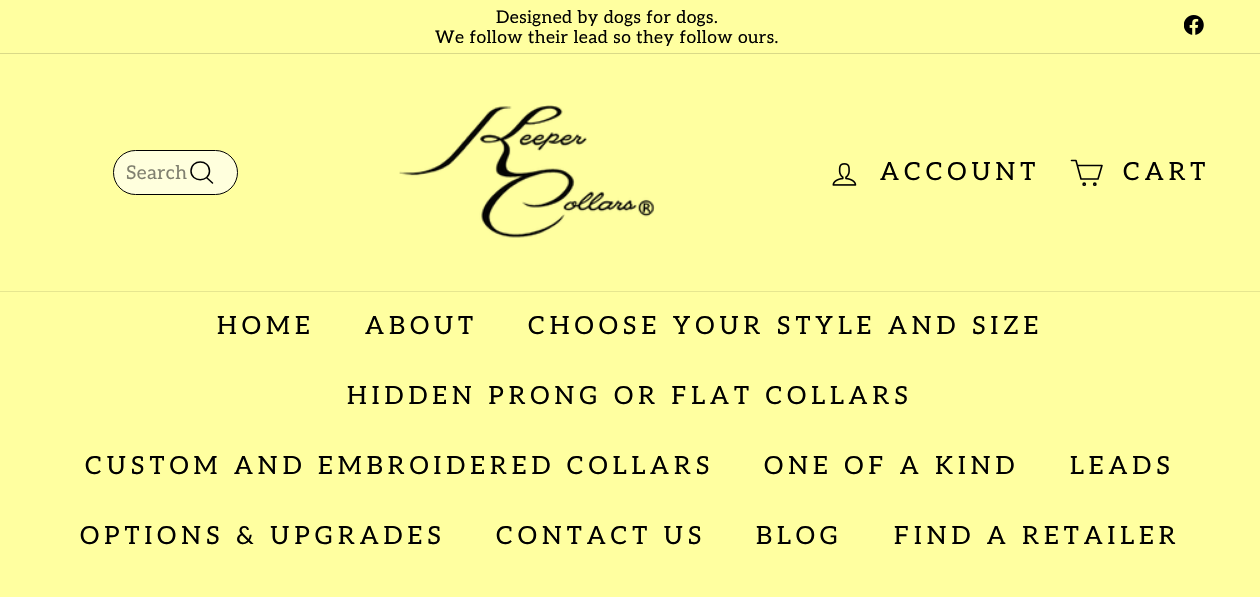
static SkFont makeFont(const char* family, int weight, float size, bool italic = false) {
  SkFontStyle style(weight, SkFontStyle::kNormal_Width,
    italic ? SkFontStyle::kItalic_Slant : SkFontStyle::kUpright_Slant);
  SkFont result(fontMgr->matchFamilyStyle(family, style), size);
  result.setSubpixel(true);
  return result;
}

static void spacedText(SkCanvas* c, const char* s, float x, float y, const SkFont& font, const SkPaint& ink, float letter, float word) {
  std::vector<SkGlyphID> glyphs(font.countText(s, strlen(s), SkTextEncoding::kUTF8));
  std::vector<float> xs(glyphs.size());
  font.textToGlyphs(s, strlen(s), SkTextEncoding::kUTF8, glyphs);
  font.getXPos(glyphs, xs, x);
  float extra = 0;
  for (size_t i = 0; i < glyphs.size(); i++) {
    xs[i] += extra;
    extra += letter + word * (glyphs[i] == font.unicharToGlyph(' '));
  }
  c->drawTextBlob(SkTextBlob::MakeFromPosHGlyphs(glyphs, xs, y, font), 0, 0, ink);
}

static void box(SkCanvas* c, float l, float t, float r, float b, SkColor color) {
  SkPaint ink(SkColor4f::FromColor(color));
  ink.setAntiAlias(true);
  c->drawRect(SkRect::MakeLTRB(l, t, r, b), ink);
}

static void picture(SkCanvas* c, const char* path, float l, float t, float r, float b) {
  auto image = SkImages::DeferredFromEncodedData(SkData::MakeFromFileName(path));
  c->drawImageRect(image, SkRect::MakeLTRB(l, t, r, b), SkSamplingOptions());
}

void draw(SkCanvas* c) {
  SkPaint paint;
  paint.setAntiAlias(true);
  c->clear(0xffffffa0);
  SkFont face1 = makeFont("Aleo", 400, 17.5f);
  paint.setColor(0xff000000);
  spacedText(c, "Designed by dogs for dogs.", 496, 23, face1, paint, 0.45f, 0);
  spacedText(c, "We follow their lead so they follow ours.", 435, 43, face1, paint, 0.45f, 0);
  picture(c, "img_01.png", 1184, 15, 1204, 35);
  box(c, 0, 53, 1260, 54, 0xffd9d988);
  paint.setColor(0xffffffdd);
  c->drawRoundRect(SkRect::MakeLTRB(113.5f, 150.5f, 237.5f, 194.5f), 22, 22, paint);
  paint.setStyle(SkPaint::kStroke_Style);
  paint.setStrokeWidth(1);
  paint.setColor(0xff000000);
  c->drawRoundRect(SkRect::MakeLTRB(113.5f, 150.5f, 237.5f, 194.5f), 22, 22, paint);
  SkFont face2 = makeFont("Aleo", 400, 19);
  paint.setStyle(SkPaint::kFill_Style);
  paint.setColor(0xff80806f);
  spacedText(c, "Search", 126, 179, face2, paint, 0.45f, 0);
  paint.setStyle(SkPaint::kStroke_Style);
  paint.setStrokeWidth(1.5f);
  paint.setStrokeCap(SkPaint::kRound_Cap);
  paint.setStrokeJoin(SkPaint::kRound_Join);
  paint.setColor(0xff000000);
  c->drawPath(SkPathBuilder().moveTo(209.5f, 171).cubicTo(209.5f, 182.5f, 191, 182.5f, 191, 171).cubicTo(191, 159, 209.5f, 159, 209.5f, 171).close().moveTo(212.5f, 183).lineTo(206.5f, 177.5f).detach(), paint);
  picture(c, "img_02.png", 399, 105, 655, 238);
  picture(c, "img_03.png", 832, 163, 857, 186);
  SkFont face3 = makeFont("Aleo", 400, 25);
  paint.setStyle(SkPaint::kFill_Style);
  spacedText(c, "ACCOUNT", 880, 180, face3, paint, 5, 0);
  paint.setStyle(SkPaint::kStroke_Style);
  paint.setStrokeWidth(1.6f);
  c->drawPath(SkPathBuilder().moveTo(1077.5f, 165.5f).lineTo(1102, 165.5f).lineTo(1098, 179).lineTo(1081, 179).lineTo(1076, 160.5f).lineTo(1071.5f, 160.5f).detach(), paint);
  paint.setStrokeCap(SkPaint::kButt_Cap);
  paint.setStrokeJoin(SkPaint::kMiter_Join);
  c->drawCircle(1084.2f, 184.2f, 1.1f, paint);
  c->drawCircle(1094.8f, 184.2f, 1.1f, paint);
  paint.setStyle(SkPaint::kFill_Style);
  spacedText(c, "CART", 1123, 180, face3, paint, 5, 0);
  box(c, 0, 291, 1260, 292, 0xffe6e690);
  spacedText(c, "HOME", 217, 334, face3, paint, 5, 0);
  spacedText(c, "ABOUT", 365, 334, face3, paint, 5, 0);
  spacedText(c, "CHOOSE YOUR STYLE AND SIZE", 528, 334, face3, paint, 5, 0);
  spacedText(c, "HIDDEN PRONG OR FLAT COLLARS", 347, 404, face3, paint, 5, 0);
  spacedText(c, "CUSTOM AND EMBROIDERED COLLARS", 85, 474, face3, paint, 5, 0);
  spacedText(c, "ONE OF A KIND", 764, 474, face3, paint, 5, 0);
  spacedText(c, "LEADS", 1070, 474, face3, paint, 5, 0);
  spacedText(c, "OPTIONS & UPGRADES", 80, 544, face3, paint, 5, 0);
  spacedText(c, "CONTACT US", 496, 544, face3, paint, 5, 0);
  spacedText(c, "BLOG", 756, 544, face3, paint, 5, 0);
  spacedText(c, "FIND A RETAILER", 894, 544, face3, paint, 5, 0);
}
